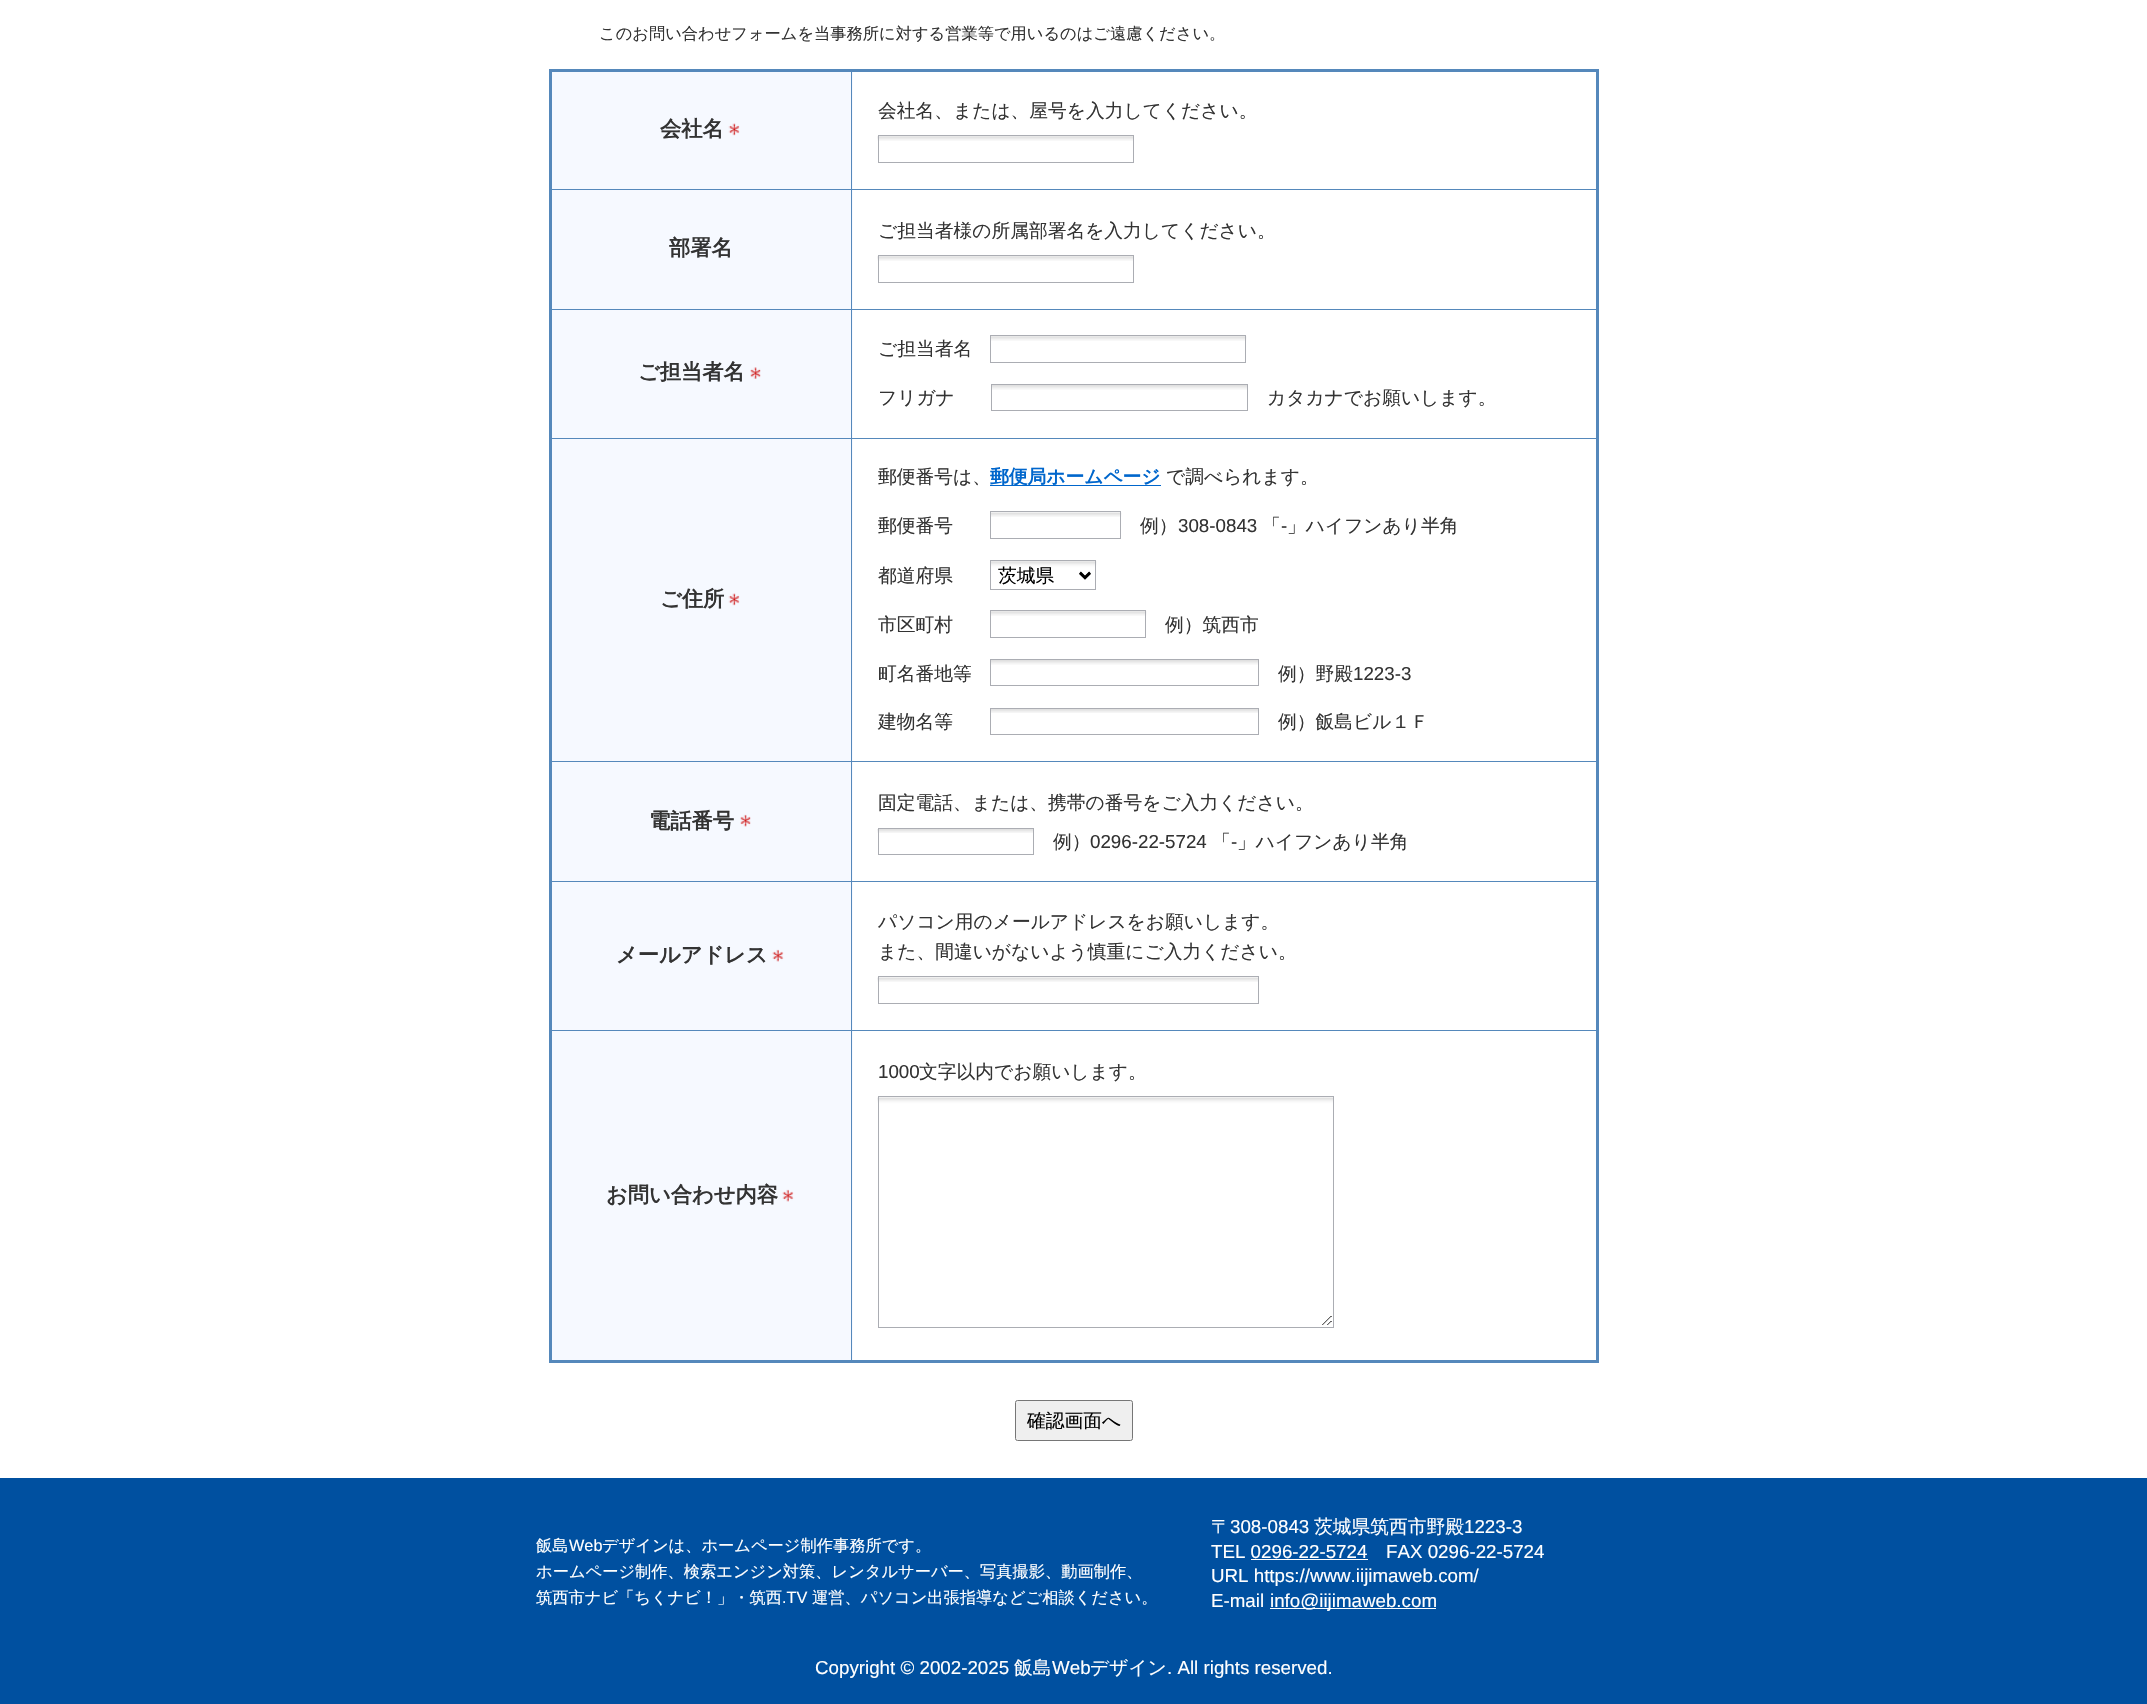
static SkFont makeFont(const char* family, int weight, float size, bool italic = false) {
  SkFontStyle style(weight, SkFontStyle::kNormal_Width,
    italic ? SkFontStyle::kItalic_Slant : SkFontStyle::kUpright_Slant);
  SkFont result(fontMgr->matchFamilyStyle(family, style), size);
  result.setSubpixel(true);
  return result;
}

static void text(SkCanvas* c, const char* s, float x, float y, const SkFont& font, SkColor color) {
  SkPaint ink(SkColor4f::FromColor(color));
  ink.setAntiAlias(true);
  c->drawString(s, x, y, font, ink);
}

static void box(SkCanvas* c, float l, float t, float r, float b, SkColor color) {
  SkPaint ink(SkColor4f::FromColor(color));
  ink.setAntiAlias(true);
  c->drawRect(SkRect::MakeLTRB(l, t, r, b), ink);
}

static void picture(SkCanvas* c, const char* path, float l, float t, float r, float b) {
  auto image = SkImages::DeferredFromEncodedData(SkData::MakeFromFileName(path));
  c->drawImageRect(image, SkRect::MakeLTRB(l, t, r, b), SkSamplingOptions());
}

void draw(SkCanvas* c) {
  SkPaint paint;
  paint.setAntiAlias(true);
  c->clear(0xffffffff);
  SkFont face1 = makeFont("WenQuanYi Zen Hei", 500, 16.25f);
  text(c, "このお問い合わせフォームを当事務所に対する営業等で用いるのはご遠慮ください。", 599, 39, face1, 0xff333333);
  box(c, 552, 72, 853, 189, 0xfff6f9ff);
  box(c, 851, 189, 1599, 190, 0xff5588bb);
  box(c, 552, 190, 853, 309, 0xfff6f9ff);
  box(c, 851, 309, 1599, 310, 0xff5588bb);
  box(c, 552, 310, 853, 438, 0xfff6f9ff);
  box(c, 851, 438, 1599, 439, 0xff5588bb);
  box(c, 552, 439, 853, 881, 0xfff6f9ff);
  box(c, 851, 761, 1599, 762, 0xff5588bb);
  box(c, 552, 882, 853, 1030, 0xfff6f9ff);
  box(c, 851, 881, 1599, 882, 0xff5588bb);
  box(c, 851, 1030, 1599, 1031, 0xff5588bb);
  box(c, 552, 1031, 853, 1360, 0xfff6f9ff);
  box(c, 851, 1030, 852, 1363, 0xff5588bb);
  box(c, 550, 1030, 853, 1031, 0xff5588bb);
  box(c, 851, 881, 852, 1031, 0xff5588bb);
  box(c, 550, 881, 853, 882, 0xff5588bb);
  box(c, 851, 761, 852, 883, 0xff5588bb);
  box(c, 550, 761, 853, 762, 0xff5588bb);
  box(c, 851, 501, 852, 763, 0xff5588bb);
  box(c, 851, 438, 852, 503, 0xff5588bb);
  box(c, 550, 438, 853, 439, 0xff5588bb);
  box(c, 851, 373, 852, 439, 0xff5588bb);
  box(c, 851, 309, 852, 374, 0xff5588bb);
  box(c, 550, 309, 853, 310, 0xff5588bb);
  box(c, 851, 189, 852, 310, 0xff5588bb);
  box(c, 550, 189, 853, 190, 0xff5588bb);
  box(c, 851, 69, 852, 190, 0xff5588bb);
  box(c, 549, 69, 1599, 72, 0xff5588bb);
  box(c, 1596, 69, 1599, 1363, 0xff5588bb);
  box(c, 549, 1360, 1599, 1363, 0xff5588bb);
  box(c, 549, 69, 552, 1363, 0xff5588bb);
  SkFont face2 = makeFont("WenQuanYi Zen Hei", 500, 18.75f);
  text(c, "会社名、または、屋号を入力してください。", 878, 117, face2, 0xff333333);
  picture(c, "img_01.png", 877, 136, 1133, 141);
  paint.setStyle(SkPaint::kStroke_Style);
  paint.setStrokeWidth(1);
  paint.setColor(0xffabadb3);
  c->drawRect(SkRect::MakeLTRB(878.5f, 135.5f, 1133.5f, 162.5f), paint);
  SkFont face3 = makeFont("WenQuanYi Zen Hei", 700, 21.25f);
  text(c, "会社名", 660, 136, face3, 0xff333333);
  picture(c, "img_02.png", 728, 123, 740, 136);
  text(c, "ご担当者様の所属部署名を入力してください。", 878, 237, face2, 0xff333333);
  picture(c, "img_01.png", 877, 256, 1133, 261);
  c->drawRect(SkRect::MakeLTRB(878.5f, 255.5f, 1133.5f, 282.5f), paint);
  text(c, "部署名", 669, 255, face3, 0xff333333);
  text(c, "ご担当者名", 878, 355, face2, 0xff333333);
  picture(c, "img_03.png", 991, 336, 1247, 341);
  c->drawRect(SkRect::MakeLTRB(990.5f, 335.5f, 1245.5f, 362.5f), paint);
  text(c, "ご担当者名", 638, 379, face3, 0xff333333);
  picture(c, "img_04.png", 750, 367, 761, 379);
  text(c, "フリガナ", 878, 404, face2, 0xff333333);
  picture(c, "img_05.png", 992, 385, 1247, 390);
  c->drawRect(SkRect::MakeLTRB(991.5f, 384.5f, 1247.5f, 410.5f), paint);
  text(c, "カタカナでお願いします。", 1267, 404, face2, 0xff333333);
  text(c, "郵便番号は、", 878, 483, face2, 0xff333333);
  box(c, 990, 485, 1161, 486, 0xff0066cc);
  SkFont face4 = makeFont("WenQuanYi Zen Hei", 700, 18.75f);
  text(c, "郵便局ホームページ", 990, 483, face4, 0xff0066cc);
  text(c, "で調べられます。", 1166, 483, face2, 0xff333333);
  text(c, "ご住所", 660, 606, face3, 0xff333333);
  picture(c, "img_06.png", 728, 593, 740, 606);
  text(c, "郵便番号", 878, 532, face2, 0xff333333);
  picture(c, "img_07.png", 991, 512, 1122, 517);
  c->drawRect(SkRect::MakeLTRB(990.5f, 511.5f, 1120.5f, 538.5f), paint);
  text(c, "例）", 1140, 532, face2, 0xff333333);
  SkFont face5 = makeFont("Liberation Sans", 400, 18.75f);
  text(c, "308-0843", 1178, 532, face5, 0xff333333);
  text(c, "「", 1262, 532, face2, 0xff333333);
  text(c, "-", 1281, 532, face5, 0xff333333);
  text(c, "」ハイフンあり半角", 1287, 532, face2, 0xff333333);
  text(c, "都道府県", 878, 582, face2, 0xff333333);
  picture(c, "img_08.png", 991, 561, 1097, 580);
  c->drawRect(SkRect::MakeLTRB(990.5f, 560.5f, 1095.5f, 589.5f), paint);
  paint.setStrokeWidth(2.5f);
  paint.setColor(0xff000000);
  c->drawPath(SkPathBuilder().moveTo(1080, 573).lineTo(1085, 578).lineTo(1090, 573).detach(), paint);
  text(c, "茨城県", 998, 582, face2, 0xff000000);
  text(c, "市区町村", 878, 631, face2, 0xff333333);
  picture(c, "img_09.png", 991, 611, 1147, 616);
  paint.setStrokeWidth(1);
  paint.setColor(0xffabadb3);
  c->drawRect(SkRect::MakeLTRB(990.5f, 610.5f, 1145.5f, 637.5f), paint);
  text(c, "例）筑西市", 1165, 631, face2, 0xff333333);
  text(c, "町名番地等", 878, 680, face2, 0xff333333);
  picture(c, "img_10.png", 991, 660, 1258, 665);
  c->drawRect(SkRect::MakeLTRB(990.5f, 659.5f, 1258.5f, 685.5f), paint);
  text(c, "例）野殿", 1278, 680, face2, 0xff333333);
  text(c, "1223-3", 1353, 680, face5, 0xff333333);
  text(c, "建物名等", 878, 728, face2, 0xff333333);
  picture(c, "img_11.png", 991, 709, 1258, 713);
  c->drawRect(SkRect::MakeLTRB(990.5f, 708.5f, 1258.5f, 734.5f), paint);
  text(c, "例）飯島ビル１Ｆ", 1278, 728, face2, 0xff333333);
  text(c, "電話番号", 649, 828, face3, 0xff333333);
  picture(c, "img_12.png", 740, 814, 751, 827);
  text(c, "固定電話、または、携帯の番号をご入力ください。", 878, 809, face2, 0xff333333);
  picture(c, "img_13.png", 877, 829, 1033, 833);
  c->drawRect(SkRect::MakeLTRB(878.5f, 828.5f, 1033.5f, 854.5f), paint);
  text(c, "例）", 1053, 848, face2, 0xff333333);
  text(c, "0296-22-5724", 1090, 848, face5, 0xff333333);
  text(c, "「", 1212, 848, face2, 0xff333333);
  text(c, "-", 1231, 848, face5, 0xff333333);
  text(c, "」ハイフンあり半角", 1237, 848, face2, 0xff333333);
  text(c, "メールアドレス", 616, 962, face3, 0xff333333);
  picture(c, "img_14.png", 772, 949, 784, 962);
  text(c, "パソコン用のメールアドレスをお願いします。", 878, 928, face2, 0xff333333);
  text(c, "また、間違いがないよう慎重にご入力ください。", 878, 958, face2, 0xff333333);
  picture(c, "img_15.png", 877, 977, 1258, 982);
  c->drawRect(SkRect::MakeLTRB(878.5f, 976.5f, 1258.5f, 1003.5f), paint);
  text(c, "1000", 878, 1078, face5, 0xff333333);
  text(c, "文字以内でお願いします。", 919, 1078, face2, 0xff333333);
  picture(c, "img_16.png", 877, 1097, 1333, 1325);
  c->drawRect(SkRect::MakeLTRB(878.5f, 1096.5f, 1333.5f, 1327.5f), paint);
  text(c, "お問い合わせ内容", 606, 1202, face3, 0xff333333);
  picture(c, "img_17.png", 782, 1189, 794, 1202);
  paint.setStyle(SkPaint::kFill_Style);
  paint.setColor(0xffefefef);
  c->drawRoundRect(SkRect::MakeLTRB(1015.5f, 1400.5f, 1132.5f, 1440.5f), 2, 2, paint);
  paint.setStyle(SkPaint::kStroke_Style);
  paint.setColor(0xff767676);
  c->drawRoundRect(SkRect::MakeLTRB(1015.5f, 1400.5f, 1132.5f, 1440.5f), 2, 2, paint);
  text(c, "確認画面へ", 1027, 1427, face2, 0xff000000);
  box(c, 0, 1478, 2147, 1704, 0xff0050a0);
  text(c, "飯島", 536, 1551, face1, 0xffffffff);
  SkFont face6 = makeFont("Liberation Sans", 400, 16.25f);
  text(c, "Web", 569, 1551, face6, 0xffffffff);
  text(c, "デザインは、ホームページ制作事務所です。", 602, 1551, face1, 0xffffffff);
  text(c, "ホームページ制作、検索エンジン対策、レンタルサーバー、写真撮影、動画制作、", 536, 1577, face1, 0xffffffff);
  text(c, "筑西市ナビ「ちくナビ！」・筑西", 536, 1603, face1, 0xffffffff);
  text(c, ".TV", 782, 1603, face6, 0xffffffff);
  text(c, "運営、パソコン出張指導などご相談ください。", 812, 1603, face1, 0xffffffff);
  text(c, "〒", 1211, 1533, face2, 0xffffffff);
  text(c, "308-0843", 1230, 1533, face5, 0xffffffff);
  text(c, "茨城県筑西市野殿", 1314, 1533, face2, 0xffffffff);
  text(c, "1223-3", 1464, 1533, face5, 0xffffffff);
  text(c, "TEL 0296-22-5724", 1211, 1558, face5, 0xffffffff);
  text(c, "FAX 0296-22-5724", 1386, 1558, face5, 0xffffffff);
  box(c, 1251, 1559, 1368, 1560, 0xffffffff);
  text(c, "URL https://www.iijimaweb.com/", 1211, 1582, face5, 0xffffffff);
  text(c, "E-mail", 1211, 1607, face5, 0xffffffff);
  box(c, 1270, 1608, 1436, 1609, 0xffffffff);
  text(c, "info@iijimaweb.com", 1270, 1607, face5, 0xffffffff);
  text(c, "Copyright © 2002-2025", 815, 1674, face5, 0xffffffff);
  text(c, "飯島", 1014, 1674, face2, 0xffffffff);
  text(c, "Web", 1052, 1674, face5, 0xffffffff);
  text(c, "デザイン", 1090, 1674, face2, 0xffffffff);
  text(c, ". All rights reserved.", 1167, 1674, face5, 0xffffffff);
}
